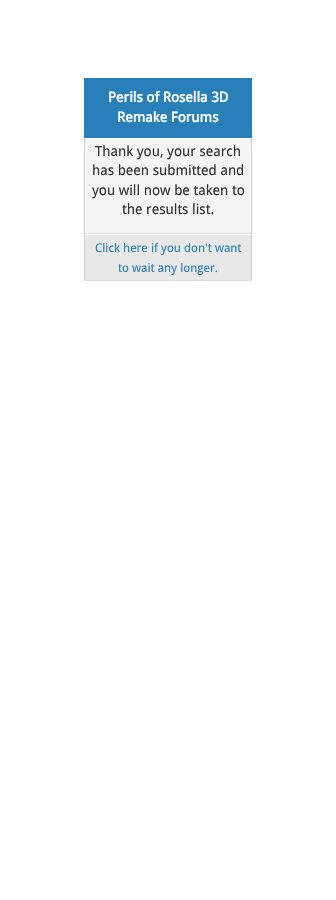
static SkFont makeFont(const char* family, int weight, float size, bool italic = false) {
  SkFontStyle style(weight, SkFontStyle::kNormal_Width,
    italic ? SkFontStyle::kItalic_Slant : SkFontStyle::kUpright_Slant);
  SkFont result(fontMgr->matchFamilyStyle(family, style), size);
  result.setSubpixel(true);
  return result;
}

static void text(SkCanvas* c, const char* s, float x, float y, const SkFont& font, SkColor color) {
  SkPaint ink(SkColor4f::FromColor(color));
  ink.setAntiAlias(true);
  c->drawString(s, x, y, font, ink);
}

static void box(SkCanvas* c, float l, float t, float r, float b, SkColor color) {
  SkPaint ink(SkColor4f::FromColor(color));
  ink.setAntiAlias(true);
  c->drawRect(SkRect::MakeLTRB(l, t, r, b), ink);
}

void draw(SkCanvas* c) {
  SkPaint paint;
  paint.setAntiAlias(true);
  c->clear(0xffffffff);
  box(c, 84, 78, 252, 138, 0xff2980b9);
  SkFont face1 = makeFont("Droid Sans", 700, 14);
  text(c, "Perils of Rosella 3D", 108, 102, face1, 0xffffffff);
  text(c, "Remake Forums", 117, 122, face1, 0xffffffff);
  box(c, 85, 139, 251, 233, 0xfff5f5f5);
  box(c, 251, 138, 252, 281, 0xffcccccc);
  box(c, 84, 233, 252, 234, 0xffdddddd);
  box(c, 84, 138, 85, 234, 0xffcccccc);
  SkFont face2 = makeFont("Droid Sans", 400, 14);
  text(c, "Thank you, your search", 95, 156, face2, 0xff333333);
  text(c, "has been submitted and", 92, 175, face2, 0xff333333);
  text(c, "you will now be taken to", 92, 195, face2, 0xff333333);
  text(c, "the results list.", 122, 214, face2, 0xff333333);
  box(c, 85, 235, 251, 280, 0xffe8e8e8);
  box(c, 84, 280, 252, 281, 0xffdddddd);
  box(c, 84, 234, 85, 281, 0xffcccccc);
  SkFont face3 = makeFont("Droid Sans", 400, 12);
  text(c, "Click here if you don't want", 95, 252, face3, 0xff2980b9);
  text(c, "to wait any longer.", 118, 272, face3, 0xff2980b9);
}
